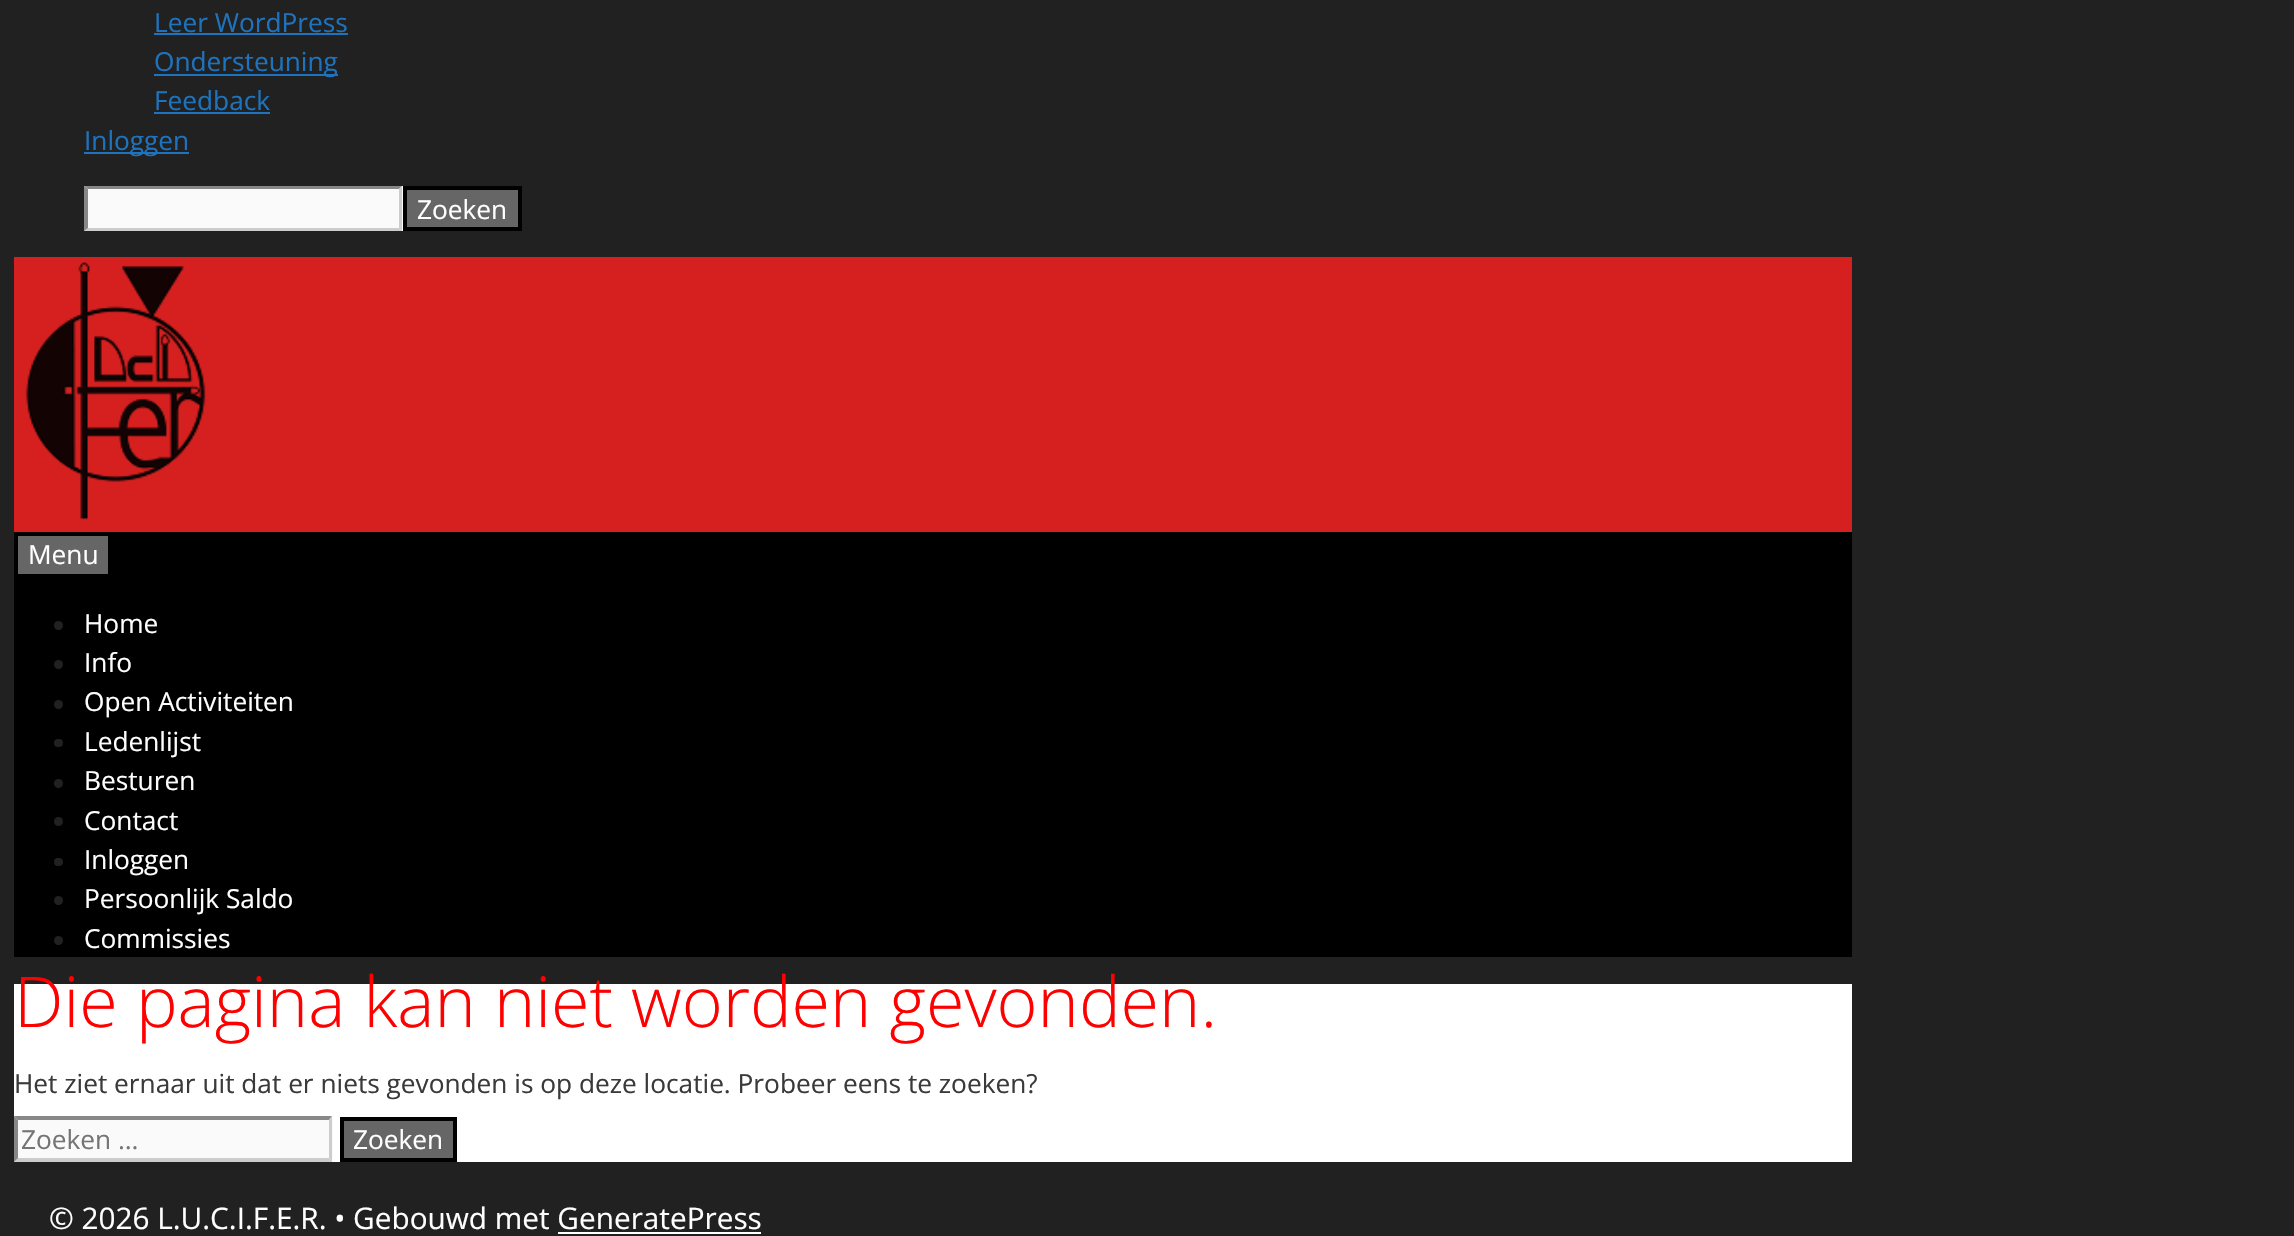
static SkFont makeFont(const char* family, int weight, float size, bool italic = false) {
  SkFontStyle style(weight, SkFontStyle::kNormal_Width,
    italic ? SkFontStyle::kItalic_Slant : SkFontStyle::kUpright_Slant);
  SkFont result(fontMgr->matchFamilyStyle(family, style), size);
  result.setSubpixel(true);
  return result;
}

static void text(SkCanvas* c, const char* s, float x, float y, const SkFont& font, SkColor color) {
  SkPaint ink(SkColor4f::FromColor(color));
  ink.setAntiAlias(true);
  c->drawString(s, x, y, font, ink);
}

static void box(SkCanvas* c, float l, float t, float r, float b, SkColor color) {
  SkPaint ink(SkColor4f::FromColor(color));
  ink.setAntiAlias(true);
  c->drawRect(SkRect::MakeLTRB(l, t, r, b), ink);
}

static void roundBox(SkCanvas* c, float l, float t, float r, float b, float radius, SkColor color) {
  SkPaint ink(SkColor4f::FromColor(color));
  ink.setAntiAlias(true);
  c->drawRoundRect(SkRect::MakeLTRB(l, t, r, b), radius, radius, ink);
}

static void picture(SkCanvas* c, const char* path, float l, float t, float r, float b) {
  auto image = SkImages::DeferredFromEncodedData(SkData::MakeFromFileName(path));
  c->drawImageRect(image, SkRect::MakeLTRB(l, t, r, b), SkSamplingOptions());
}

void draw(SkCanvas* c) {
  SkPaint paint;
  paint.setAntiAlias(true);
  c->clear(0xff212121);
  SkFont face1 = makeFont("Open Sans", 400, 26.25f);
  text(c, "Leer WordPress", 154, 32, face1, 0xff1e73be);
  box(c, 154, 33, 348, 35, 0xff1e73be);
  box(c, 154, 74, 338, 76, 0xff1e73be);
  text(c, "Ondersteuning", 154, 71, face1, 0xff1e73be);
  text(c, "Feedback", 154, 110, face1, 0xff1e73be);
  box(c, 154, 112, 270, 114, 0xff1e73be);
  box(c, 84, 152, 189, 154, 0xff1e73be);
  text(c, "Inloggen", 84, 150, face1, 0xff1e73be);
  box(c, 84, 186, 403, 231, 0xfffafafa);
  paint.setColor(0xff888888);
  c->drawPath(SkPathBuilder().moveTo(84, 186).lineTo(402, 186).lineTo(399, 189).lineTo(88, 189).close().detach(), paint);
  paint.setColor(0xffcccccc);
  c->drawPath(SkPathBuilder().moveTo(402, 186).lineTo(402, 231).lineTo(399, 228).lineTo(399, 189).close().detach(), paint);
  c->drawPath(SkPathBuilder().moveTo(402, 231).lineTo(84, 231).lineTo(88, 228).lineTo(399, 228).close().detach(), paint);
  paint.setColor(0xff888888);
  c->drawPath(SkPathBuilder().moveTo(84, 231).lineTo(84, 186).lineTo(88, 189).lineTo(88, 228).close().detach(), paint);
  paint.setColor(0xff666666);
  c->drawRect(SkRect::MakeLTRB(405, 188, 520, 229), paint);
  paint.setStyle(SkPaint::kStroke_Style);
  paint.setStrokeWidth(4);
  paint.setColor(0xff000000);
  c->drawRect(SkRect::MakeLTRB(405, 188, 520, 229), paint);
  text(c, "Zoeken", 417, 219, face1, 0xffffffff);
  box(c, 14, 257, 1852, 532, 0xffd62020);
  picture(c, "img_01.png", 25, 262, 206, 521);
  box(c, 14, 532, 1852, 957, 0xff000000);
  box(c, 18, 536, 108, 574, 0xff666666);
  text(c, "Menu", 28, 564, face1, 0xffffffff);
  paint.setStyle(SkPaint::kFill_Style);
  paint.setColor(0xff212121);
  c->drawCircle(58.5f, 625.5f, 4.5f, paint);
  text(c, "Home", 84, 633, face1, 0xffffffff);
  c->drawCircle(58.5f, 664.5f, 4.5f, paint);
  text(c, "Info", 84, 672, face1, 0xffffffff);
  c->drawCircle(58.5f, 704.5f, 4.5f, paint);
  text(c, "Open Activiteiten", 84, 711, face1, 0xffffffff);
  roundBox(c, 54, 739, 63, 747, 4, 0xff212121);
  text(c, "Ledenlijst", 84, 751, face1, 0xffffffff);
  c->drawCircle(58.5f, 783.5f, 4.5f, paint);
  text(c, "Besturen", 84, 790, face1, 0xffffffff);
  c->drawCircle(58.5f, 821.5f, 4.5f, paint);
  text(c, "Contact", 84, 830, face1, 0xffffffff);
  roundBox(c, 54, 858, 63, 866, 4, 0xff212121);
  text(c, "Inloggen", 84, 869, face1, 0xffffffff);
  c->drawCircle(58.5f, 900.5f, 4.5f, paint);
  text(c, "Persoonlijk Saldo", 84, 908, face1, 0xffffffff);
  c->drawCircle(58.5f, 940.5f, 4.5f, paint);
  text(c, "Commissies", 84, 948, face1, 0xffffffff);
  box(c, 14, 984, 1852, 1162, 0xffffffff);
  SkFont face2 = makeFont("Open Sans", 300, 70);
  text(c, "Die pagina kan niet worden gevonden.", 14, 1027, face2, 0xffff0000);
  text(c, "Het ziet ernaar uit dat er niets gevonden is op deze locatie. Probeer eens te zoeken?", 14, 1093, face1, 0xff3a3a3a);
  box(c, 14, 1117, 333, 1162, 0xfffafafa);
  paint.setColor(0xff888888);
  c->drawPath(SkPathBuilder().moveTo(14, 1116).lineTo(332, 1116).lineTo(329, 1120).lineTo(18, 1120).close().detach(), paint);
  paint.setColor(0xffcccccc);
  c->drawPath(SkPathBuilder().moveTo(332, 1116).lineTo(332, 1162).lineTo(329, 1158).lineTo(329, 1120).close().detach(), paint);
  c->drawPath(SkPathBuilder().moveTo(332, 1162).lineTo(14, 1162).lineTo(18, 1158).lineTo(329, 1158).close().detach(), paint);
  paint.setColor(0xff888888);
  c->drawPath(SkPathBuilder().moveTo(14, 1162).lineTo(14, 1116).lineTo(18, 1120).lineTo(18, 1158).close().detach(), paint);
  text(c, "Zoeken …", 21, 1149, face1, 0xff757575);
  paint.setColor(0xff666666);
  c->drawRect(SkRect::MakeLTRB(342, 1119, 455, 1160), paint);
  paint.setStyle(SkPaint::kStroke_Style);
  paint.setColor(0xff000000);
  c->drawRect(SkRect::MakeLTRB(342, 1119, 455, 1160), paint);
  text(c, "Zoeken", 353, 1149, face1, 0xffffffff);
  SkFont face3 = makeFont("Open Sans", 400, 29.75f);
  text(c, "© 2026 L.U.C.I.F.E.R. • Gebouwd met GeneratePress", 49, 1229, face3, 0xffffffff);
  box(c, 558, 1232, 761, 1234, 0xffffffff);
}
